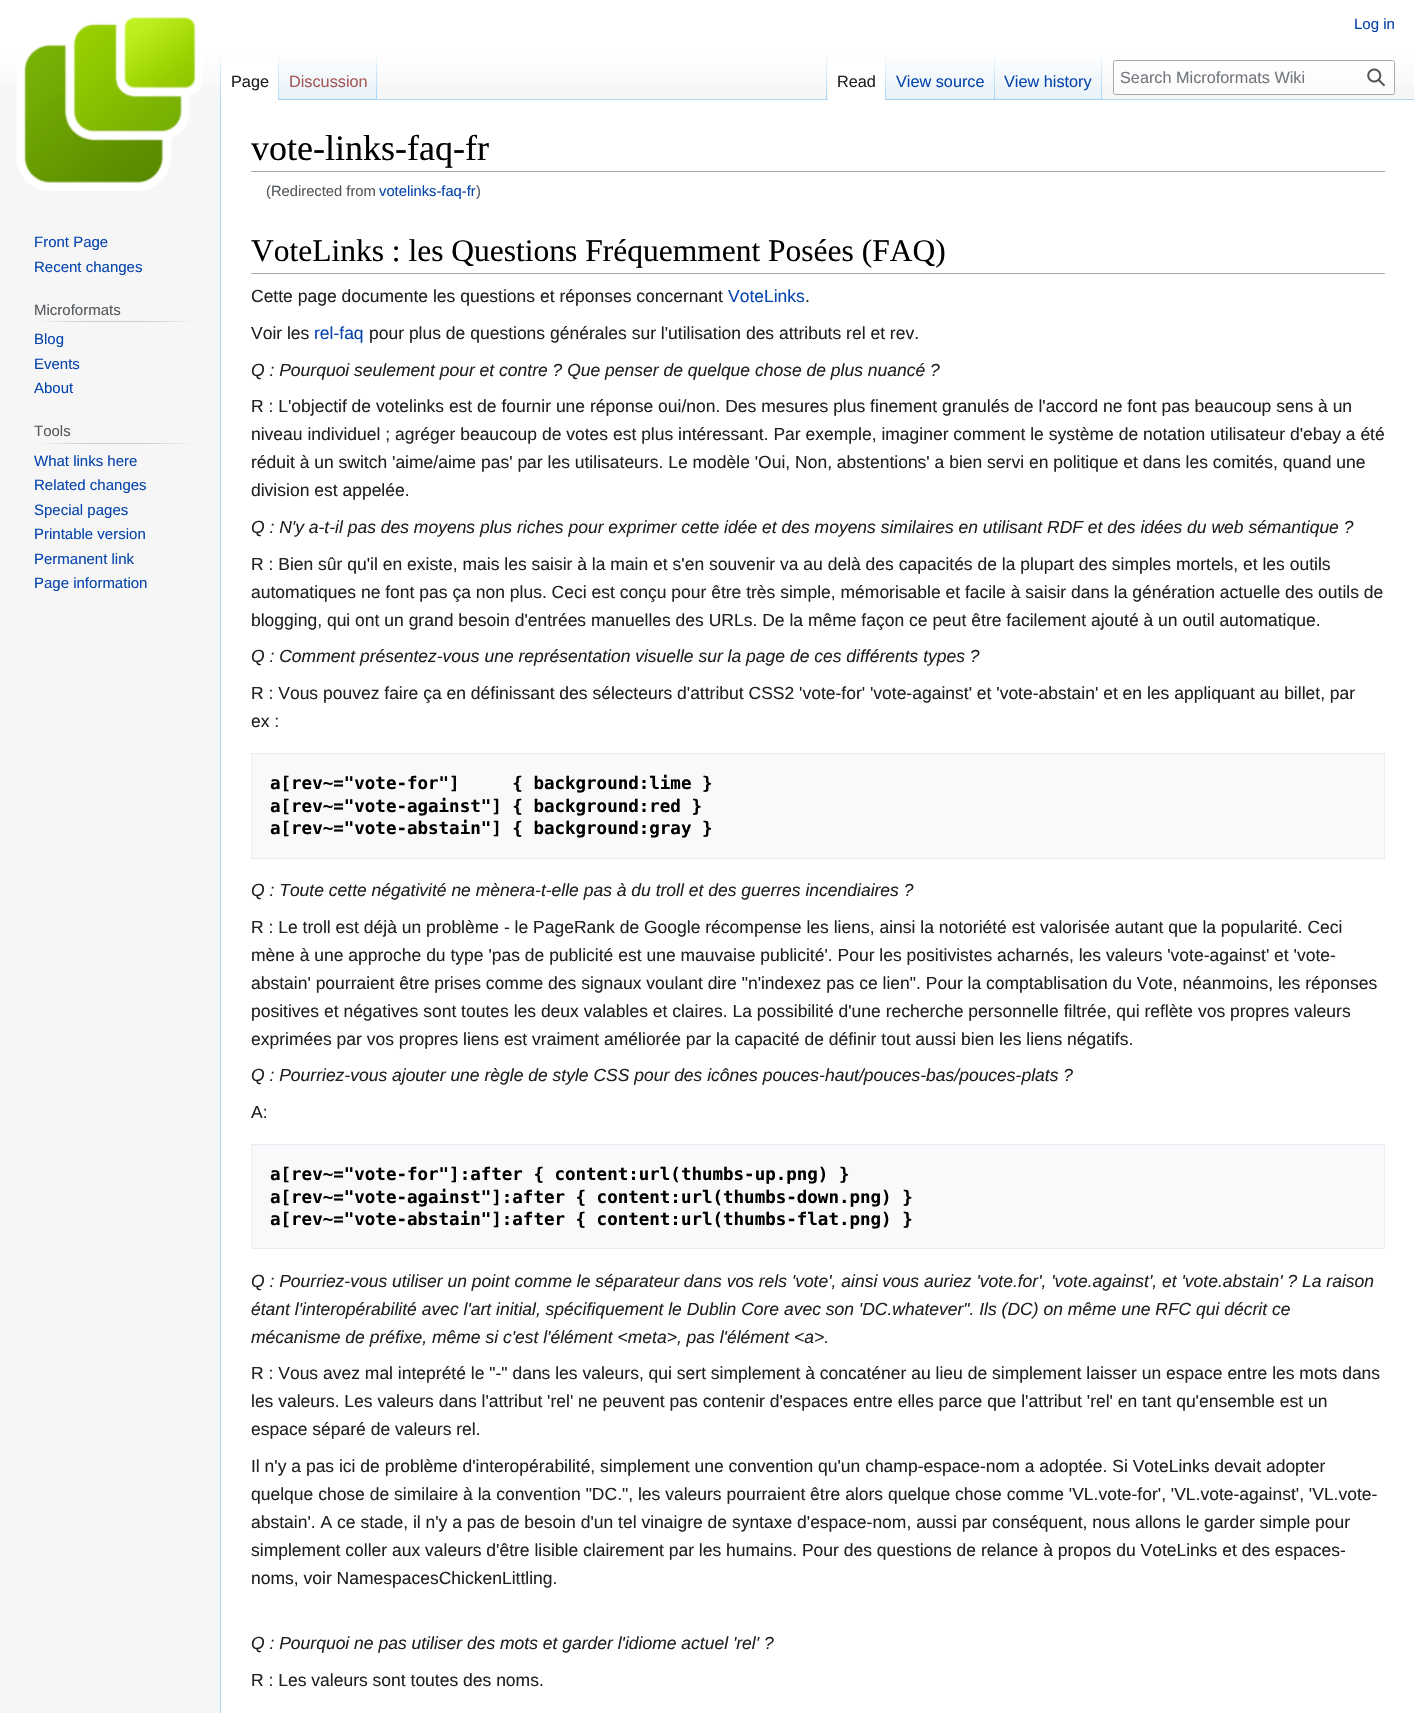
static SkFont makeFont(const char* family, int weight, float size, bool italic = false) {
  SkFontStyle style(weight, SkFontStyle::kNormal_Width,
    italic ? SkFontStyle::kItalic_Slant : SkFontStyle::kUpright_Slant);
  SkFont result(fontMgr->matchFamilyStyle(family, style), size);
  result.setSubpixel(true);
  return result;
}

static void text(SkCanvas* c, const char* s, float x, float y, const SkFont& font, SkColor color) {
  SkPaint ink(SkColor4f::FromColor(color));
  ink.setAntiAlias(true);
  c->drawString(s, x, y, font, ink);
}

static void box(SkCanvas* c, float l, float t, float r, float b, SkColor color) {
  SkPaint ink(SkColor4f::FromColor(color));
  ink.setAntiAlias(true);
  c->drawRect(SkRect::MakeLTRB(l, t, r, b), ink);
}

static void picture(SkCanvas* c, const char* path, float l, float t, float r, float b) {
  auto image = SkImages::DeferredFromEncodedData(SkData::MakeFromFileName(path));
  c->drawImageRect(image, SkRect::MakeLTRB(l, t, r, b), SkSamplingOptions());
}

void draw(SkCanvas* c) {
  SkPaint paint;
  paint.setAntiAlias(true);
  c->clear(0xfff6f6f6);
  {
    const SkColor colors[] = {0xffffffff, 0xfff6f6f6};
    const float stops[] = {0.5f, 1};
    const SkPoint ends[] = {{708, 0}, {708, 100}};
    paint.setShader(SkGradientShader::MakeLinear(ends, colors, stops, 2, SkTileMode::kClamp));
    paint.setAlpha(255);
  }
  c->drawRect(SkRect::MakeLTRB(0, 0, 1414, 86), paint);
  SkFont face1 = makeFont("Liberation Sans", 400, 15);
  text(c, "Log in", 1354, 29, face1, 0xff0645ad);
  box(c, 220, 99, 221, 1713, 0xffa7d7f9);
  {
    const SkColor colors[] = {0x00a7d7f9, 0xffa7d7f9};
    const float stops[] = {0, 1};
    const SkPoint ends[] = {{221, 50}, {221, 100}};
    paint.setShader(SkGradientShader::MakeLinear(ends, colors, stops, 2, SkTileMode::kClamp));
    paint.setAlpha(255);
  }
  c->drawRect(SkRect::MakeLTRB(220, 50, 221, 100), paint);
  box(c, 221, 64, 278, 100, 0xffffffff);
  {
    const SkColor colors[] = {0xffffffff, 0xffa7d7f9};
    const float stops[] = {0, 1};
    const SkPoint ends[] = {{278, 50}, {278, 100}};
    paint.setShader(SkGradientShader::MakeLinear(ends, colors, stops, 2, SkTileMode::kClamp));
    paint.setAlpha(255);
  }
  c->drawRect(SkRect::MakeLTRB(278, 50, 279, 100), paint);
  SkFont face2 = makeFont("Liberation Sans", 400, 16.25f);
  text(c, "Page", 231, 87, face2, 0xff202122);
  {
    const SkColor colors[] = {0xff77c1f6, 0xffe8f2f8, 0xffffffff};
    const float stops[] = {0, 0.03f, 1};
    const SkPoint ends[] = {{328, 100}, {328, 50}};
    paint.setShader(SkGradientShader::MakeLinear(ends, colors, stops, 3, SkTileMode::kClamp));
    paint.setAlpha(255);
  }
  c->drawRect(SkRect::MakeLTRB(279, 57, 378, 100), paint);
  {
    const SkColor colors[] = {0x00a7d7f9, 0xffa7d7f9};
    const float stops[] = {0, 1};
    const SkPoint ends[] = {{377, 50}, {377, 100}};
    paint.setShader(SkGradientShader::MakeLinear(ends, colors, stops, 2, SkTileMode::kClamp));
    paint.setAlpha(255);
  }
  c->drawRect(SkRect::MakeLTRB(376, 50, 377, 100), paint);
  text(c, "Discussion", 289, 87, face2, 0xffa55858);
  box(c, 378, 99, 1414, 100, 0xffa7d7f9);
  {
    const SkColor colors[] = {0x00a7d7f9, 0xffa7d7f9};
    const float stops[] = {0, 1};
    const SkPoint ends[] = {{827, 50}, {827, 100}};
    paint.setShader(SkGradientShader::MakeLinear(ends, colors, stops, 2, SkTileMode::kClamp));
    paint.setAlpha(255);
  }
  c->drawRect(SkRect::MakeLTRB(826, 50, 827, 100), paint);
  box(c, 828, 64, 885, 100, 0xffffffff);
  {
    const SkColor colors[] = {0xffffffff, 0xffa7d7f9};
    const float stops[] = {0, 1};
    const SkPoint ends[] = {{886, 50}, {886, 100}};
    paint.setShader(SkGradientShader::MakeLinear(ends, colors, stops, 2, SkTileMode::kClamp));
    paint.setAlpha(255);
  }
  c->drawRect(SkRect::MakeLTRB(885, 50, 886, 100), paint);
  text(c, "Read", 837, 87, face2, 0xff202122);
  {
    const SkColor colors[] = {0xff77c1f6, 0xffe8f2f8, 0xffffffff};
    const float stops[] = {0, 0.03f, 1};
    const SkPoint ends[] = {{941, 100}, {941, 50}};
    paint.setShader(SkGradientShader::MakeLinear(ends, colors, stops, 3, SkTileMode::kClamp));
    paint.setAlpha(255);
  }
  c->drawRect(SkRect::MakeLTRB(886, 57, 995, 100), paint);
  {
    const SkColor colors[] = {0x00a7d7f9, 0xffa7d7f9};
    const float stops[] = {0, 1};
    const SkPoint ends[] = {{994, 50}, {994, 100}};
    paint.setShader(SkGradientShader::MakeLinear(ends, colors, stops, 2, SkTileMode::kClamp));
    paint.setAlpha(255);
  }
  c->drawRect(SkRect::MakeLTRB(994, 50, 995, 100), paint);
  text(c, "View source", 896, 87, face2, 0xff0645ad);
  {
    const SkColor colors[] = {0xff77c1f6, 0xffe8f2f8, 0xffffffff};
    const float stops[] = {0, 0.03f, 1};
    const SkPoint ends[] = {{1049, 100}, {1049, 50}};
    paint.setShader(SkGradientShader::MakeLinear(ends, colors, stops, 3, SkTileMode::kClamp));
    paint.setAlpha(255);
  }
  c->drawRect(SkRect::MakeLTRB(995, 57, 1103, 100), paint);
  {
    const SkColor colors[] = {0x00a7d7f9, 0xffa7d7f9};
    const float stops[] = {0, 1};
    const SkPoint ends[] = {{1102, 50}, {1102, 100}};
    paint.setShader(SkGradientShader::MakeLinear(ends, colors, stops, 2, SkTileMode::kClamp));
    paint.setAlpha(255);
  }
  c->drawRect(SkRect::MakeLTRB(1101, 50, 1102, 100), paint);
  text(c, "View history", 1004, 87, face2, 0xff0645ad);
  paint.setShader(nullptr);
  paint.setColor(0x80ffffff);
  c->drawRoundRect(SkRect::MakeLTRB(1113.5f, 60.5f, 1394.5f, 94.5f), 2, 2, paint);
  paint.setStyle(SkPaint::kStroke_Style);
  paint.setStrokeWidth(1);
  paint.setColor(0xffa2a9b1);
  c->drawRoundRect(SkRect::MakeLTRB(1113.5f, 60.5f, 1394.5f, 94.5f), 2, 2, paint);
  text(c, "Search Microformats Wiki", 1120, 83, face2, 0xff72777d);
  picture(c, "img_01.png", 1367, 68, 1386, 87);
  picture(c, "img_02.png", 16, 17, 203, 191);
  text(c, "Front Page", 34, 247, face1, 0xff0645ad);
  text(c, "Recent changes", 34, 272, face1, 0xff0645ad);
  paint.setStyle(SkPaint::kFill_Style);
  {
    const SkColor colors[] = {0xfff6f6f6, 0xffc8ccd1, 0xffc8ccd1, 0xfff6f6f6};
    const float stops[] = {0, 0.33f, 0.66f, 1};
    const SkPoint ends[] = {{34, 322}, {198, 322}};
    paint.setShader(SkGradientShader::MakeLinear(ends, colors, stops, 4, SkTileMode::kClamp));
    paint.setAlpha(255);
  }
  c->drawRect(SkRect::MakeLTRB(34, 321, 198, 322), paint);
  text(c, "Microformats", 34, 315, face1, 0xff54595d);
  text(c, "Blog", 34, 344, face1, 0xff0645ad);
  text(c, "Events", 34, 369, face1, 0xff0645ad);
  text(c, "About", 34, 393, face1, 0xff0645ad);
  {
    const SkColor colors[] = {0xfff6f6f6, 0xffc8ccd1, 0xffc8ccd1, 0xfff6f6f6};
    const float stops[] = {0, 0.33f, 0.66f, 1};
    const SkPoint ends[] = {{34, 443}, {198, 443}};
    paint.setShader(SkGradientShader::MakeLinear(ends, colors, stops, 4, SkTileMode::kClamp));
    paint.setAlpha(255);
  }
  c->drawRect(SkRect::MakeLTRB(34, 443, 198, 444), paint);
  text(c, "Tools", 34, 436, face1, 0xff54595d);
  text(c, "What links here", 34, 466, face1, 0xff0645ad);
  text(c, "Related changes", 34, 490, face1, 0xff0645ad);
  text(c, "Special pages", 34, 515, face1, 0xff0645ad);
  text(c, "Printable version", 34, 539, face1, 0xff0645ad);
  text(c, "Permanent link", 34, 564, face1, 0xff0645ad);
  text(c, "Page information", 34, 588, face1, 0xff0645ad);
  box(c, 221, 100, 1414, 1713, 0xffffffff);
  box(c, 251, 171, 1385, 172, 0xffa2a9b1);
  SkFont face3 = makeFont("Liberation Serif", 400, 36);
  text(c, "vote-links-faq-fr", 251, 160, face3, 0xff000000);
  SkFont face4 = makeFont("Liberation Sans", 400, 14.75f);
  text(c, "(Redirected from", 266, 196, face4, 0xff54595d);
  text(c, "votelinks-faq-fr", 379, 196, face4, 0xff0645ad);
  text(c, ")", 476, 196, face4, 0xff54595d);
  box(c, 251, 273, 1385, 274, 0xffa2a9b1);
  SkFont face5 = makeFont("Liberation Serif", 400, 31.5f);
  text(c, "VoteLinks : les Questions Fréquemment Posées (FAQ)", 251, 261, face5, 0xff000000);
  SkFont face6 = makeFont("Liberation Sans", 400, 17.5f);
  text(c, "Cette page documente les questions et réponses concernant", 251, 302, face6, 0xff202122);
  text(c, "VoteLinks", 728, 302, face6, 0xff0645ad);
  text(c, ".", 805, 302, face6, 0xff202122);
  text(c, "Voir les", 251, 339, face6, 0xff202122);
  text(c, "rel-faq", 314, 339, face6, 0xff0645ad);
  text(c, "pour plus de questions générales sur l'utilisation des attributs rel et rev.", 369, 339, face6, 0xff202122);
  SkFont face7 = makeFont("Liberation Sans", 400, 17.5f, true);
  text(c, "Q : Pourquoi seulement pour et contre ? Que penser de quelque chose de plus nuancé ?", 251, 376, face7, 0xff202122);
  text(c, "R : L'objectif de votelinks est de fournir une réponse oui/non. Des mesures plus finement granulés de l'accord ne font pas beaucoup sens à un", 251, 412, face6, 0xff202122);
  text(c, "niveau individuel ; agréger beaucoup de votes est plus intéressant. Par exemple, imaginer comment le système de notation utilisateur d'ebay a été", 251, 440, face6, 0xff202122);
  text(c, "réduit à un switch 'aime/aime pas' par les utilisateurs. Le modèle 'Oui, Non, abstentions' a bien servi en politique et dans les comités, quand une", 251, 468, face6, 0xff202122);
  text(c, "division est appelée.", 251, 496, face6, 0xff202122);
  text(c, "Q : N'y a-t-il pas des moyens plus riches pour exprimer cette idée et des moyens similaires en utilisant RDF et des idées du web sémantique ?", 251, 533, face7, 0xff202122);
  text(c, "R : Bien sûr qu'il en existe, mais les saisir à la main et s'en souvenir va au delà des capacités de la plupart des simples mortels, et les outils", 251, 570, face6, 0xff202122);
  text(c, "automatiques ne font pas ça non plus. Ceci est conçu pour être très simple, mémorisable et facile à saisir dans la génération actuelle des outils de", 251, 598, face6, 0xff202122);
  text(c, "blogging, qui ont un grand besoin d'entrées manuelles des URLs. De la même façon ce peut être facilement ajouté à un outil automatique.", 251, 626, face6, 0xff202122);
  text(c, "Q : Comment présentez-vous une représentation visuelle sur la page de ces différents types ?", 251, 662, face7, 0xff202122);
  text(c, "R : Vous pouvez faire ça en définissant des sélecteurs d'attribut CSS2 'vote-for' 'vote-against' et 'vote-abstain' et en les appliquant au billet, par", 251, 699, face6, 0xff202122);
  text(c, "ex :", 251, 727, face6, 0xff202122);
  paint.setShader(nullptr);
  paint.setColor(0xfff8f9fa);
  c->drawRect(SkRect::MakeLTRB(251.5f, 753.5f, 1384.5f, 858.5f), paint);
  paint.setStyle(SkPaint::kStroke_Style);
  paint.setColor(0xffeaecf0);
  c->drawRect(SkRect::MakeLTRB(251.5f, 753.5f, 1384.5f, 858.5f), paint);
  SkFont face8 = makeFont("DejaVu Sans Mono", 700, 17.5f);
  text(c, "a[rev~=\"vote-for\"]     { background:lime }", 270, 789, face8, 0xff000000);
  text(c, "a[rev~=\"vote-against\"] { background:red }", 270, 812, face8, 0xff000000);
  text(c, "a[rev~=\"vote-abstain\"] { background:gray }", 270, 834, face8, 0xff000000);
  text(c, "Q : Toute cette négativité ne mènera-t-elle pas à du troll et des guerres incendiaires ?", 251, 896, face7, 0xff202122);
  text(c, "R : Le troll est déjà un problème - le PageRank de Google récompense les liens, ainsi la notoriété est valorisée autant que la popularité. Ceci", 251, 933, face6, 0xff202122);
  text(c, "mène à une approche du type 'pas de publicité est une mauvaise publicité'. Pour les positivistes acharnés, les valeurs 'vote-against' et 'vote-", 251, 961, face6, 0xff202122);
  text(c, "abstain' pourraient être prises comme des signaux voulant dire \"n'indexez pas ce lien\". Pour la comptablisation du Vote, néanmoins, les réponses", 251, 989, face6, 0xff202122);
  text(c, "positives et négatives sont toutes les deux valables et claires. La possibilité d'une recherche personnelle filtrée, qui reflète vos propres valeurs", 251, 1017, face6, 0xff202122);
  text(c, "exprimées par vos propres liens est vraiment améliorée par la capacité de définir tout aussi bien les liens négatifs.", 251, 1045, face6, 0xff202122);
  text(c, "Q : Pourriez-vous ajouter une règle de style CSS pour des icônes pouces-haut/pouces-bas/pouces-plats ?", 251, 1081, face7, 0xff202122);
  text(c, "A:", 251, 1118, face6, 0xff202122);
  paint.setStyle(SkPaint::kFill_Style);
  paint.setColor(0xfff8f9fa);
  c->drawRect(SkRect::MakeLTRB(251.5f, 1144.5f, 1384.5f, 1248.5f), paint);
  paint.setStyle(SkPaint::kStroke_Style);
  paint.setColor(0xffeaecf0);
  c->drawRect(SkRect::MakeLTRB(251.5f, 1144.5f, 1384.5f, 1248.5f), paint);
  text(c, "a[rev~=\"vote-for\"]:after { content:url(thumbs-up.png) }", 270, 1180, face8, 0xff000000);
  text(c, "a[rev~=\"vote-against\"]:after { content:url(thumbs-down.png) }", 270, 1203, face8, 0xff000000);
  text(c, "a[rev~=\"vote-abstain\"]:after { content:url(thumbs-flat.png) }", 270, 1225, face8, 0xff000000);
  text(c, "Q : Pourriez-vous utiliser un point comme le séparateur dans vos rels 'vote', ainsi vous auriez 'vote.for', 'vote.against', et 'vote.abstain' ? La raison", 251, 1287, face7, 0xff202122);
  text(c, "étant l'interopérabilité avec l'art initial, spécifiquement le Dublin Core avec son 'DC.whatever\". Ils (DC) on même une RFC qui décrit ce", 251, 1315, face7, 0xff202122);
  text(c, "mécanisme de préfixe, même si c'est l'élément <meta>, pas l'élément <a>.", 251, 1343, face7, 0xff202122);
  text(c, "R : Vous avez mal inteprété le \"-\" dans les valeurs, qui sert simplement à concaténer au lieu de simplement laisser un espace entre les mots dans", 251, 1379, face6, 0xff202122);
  text(c, "les valeurs. Les valeurs dans l'attribut 'rel' ne peuvent pas contenir d'espaces entre elles parce que l'attribut 'rel' en tant qu'ensemble est un", 251, 1407, face6, 0xff202122);
  text(c, "espace séparé de valeurs rel.", 251, 1435, face6, 0xff202122);
  text(c, "Il n'y a pas ici de problème d'interopérabilité, simplement une convention qu'un champ-espace-nom a adoptée. Si VoteLinks devait adopter", 251, 1472, face6, 0xff202122);
  text(c, "quelque chose de similaire à la convention \"DC.\", les valeurs pourraient être alors quelque chose comme 'VL.vote-for', 'VL.vote-against', 'VL.vote-", 251, 1500, face6, 0xff202122);
  text(c, "abstain'. A ce stade, il n'y a pas de besoin d'un tel vinaigre de syntaxe d'espace-nom, aussi par conséquent, nous allons le garder simple pour", 251, 1528, face6, 0xff202122);
  text(c, "simplement coller aux valeurs d'être lisible clairement par les humains. Pour des questions de relance à propos du VoteLinks et des espaces-", 251, 1556, face6, 0xff202122);
  text(c, "noms, voir NamespacesChickenLittling.", 251, 1584, face6, 0xff202122);
  text(c, "Q : Pourquoi ne pas utiliser des mots et garder l'idiome actuel 'rel' ?", 251, 1649, face7, 0xff202122);
  text(c, "R : Les valeurs sont toutes des noms.", 251, 1686, face6, 0xff202122);
}
